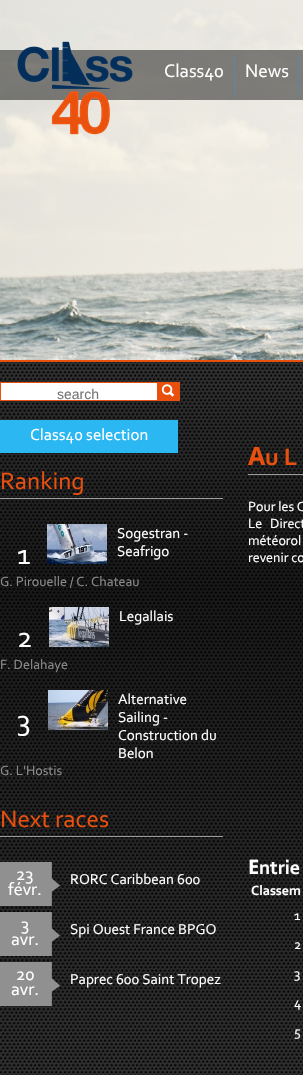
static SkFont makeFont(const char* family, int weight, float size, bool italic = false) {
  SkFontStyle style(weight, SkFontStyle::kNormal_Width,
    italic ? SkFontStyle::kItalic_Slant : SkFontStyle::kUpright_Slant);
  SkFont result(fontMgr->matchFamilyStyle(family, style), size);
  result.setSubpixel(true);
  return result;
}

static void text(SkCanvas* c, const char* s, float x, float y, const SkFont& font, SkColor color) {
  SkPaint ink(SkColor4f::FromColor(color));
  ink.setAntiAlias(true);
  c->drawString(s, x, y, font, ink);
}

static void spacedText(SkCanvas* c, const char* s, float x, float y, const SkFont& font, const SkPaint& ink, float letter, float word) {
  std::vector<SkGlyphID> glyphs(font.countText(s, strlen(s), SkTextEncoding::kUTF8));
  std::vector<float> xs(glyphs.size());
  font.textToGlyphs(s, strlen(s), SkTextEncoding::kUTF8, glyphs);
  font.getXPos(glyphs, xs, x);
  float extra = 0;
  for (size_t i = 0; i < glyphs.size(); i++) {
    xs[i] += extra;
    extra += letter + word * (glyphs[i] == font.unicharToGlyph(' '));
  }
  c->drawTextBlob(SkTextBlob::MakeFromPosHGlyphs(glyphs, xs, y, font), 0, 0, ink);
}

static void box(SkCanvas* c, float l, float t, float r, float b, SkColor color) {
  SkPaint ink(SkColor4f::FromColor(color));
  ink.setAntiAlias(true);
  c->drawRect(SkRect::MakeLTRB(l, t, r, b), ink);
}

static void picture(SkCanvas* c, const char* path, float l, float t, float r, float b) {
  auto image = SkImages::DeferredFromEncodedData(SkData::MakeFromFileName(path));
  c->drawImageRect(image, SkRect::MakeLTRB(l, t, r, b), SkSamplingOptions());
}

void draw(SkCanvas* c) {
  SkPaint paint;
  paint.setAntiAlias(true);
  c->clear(0xffffffff);
  picture(c, "img_01.png", 0, 362, 303, 1075);
  box(c, 0, 360, 303, 362, 0xffe9500e);
  picture(c, "img_02.png", 0, 0, 303, 360);
  box(c, 0, 50, 303, 100, 0x78000000);
  picture(c, "img_03.png", 17, 41, 133, 135);
  box(c, 234, 56, 235, 97, 0xff5a88a7);
  SkFont face1 = makeFont("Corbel", 400, 19);
  text(c, "Class40", 164, 77, face1, 0xffffffff);
  box(c, 299, 56, 300, 97, 0xff5a88a7);
  text(c, "News", 245, 77, face1, 0xffffffff);
  picture(c, "img_04.png", 0, 382, 180, 401);
  SkFont face2 = makeFont("Liberation Sans", 400, 14);
  text(c, "search", 57, 399, face2, 0xff757575);
  picture(c, "img_05.png", 161, 384, 175, 397);
  box(c, 0, 420, 178, 453, 0xff2bb8f2);
  SkFont face3 = makeFont("Corbel", 400, 16.75f);
  text(c, "Class40 selection", 30, 440, face3, 0xffffffff);
  box(c, 0, 498, 223, 499, 0xff9d9d9d);
  SkFont face4 = makeFont("Corbel", 400, 25);
  text(c, "Ranking", 0, 489, face4, 0xffe9500e);
  SkFont face5 = makeFont("Corbel", 400, 30);
  text(c, "1", 17, 564, face5, 0xffffffff);
  picture(c, "img_06.png", 47, 524, 107, 564);
  SkFont face6 = makeFont("Corbel", 400, 15);
  text(c, "Sogestran -", 117, 538, face6, 0xffffffff);
  text(c, "Seafrigo", 117, 556, face6, 0xffffffff);
  SkFont face7 = makeFont("Corbel", 400, 14);
  text(c, "G. Pirouelle / C. Chateau", 0, 586, face7, 0xff8b8b8b);
  picture(c, "img_07.png", 49, 607, 109, 647);
  text(c, "Legallais", 119, 621, face6, 0xffffffff);
  text(c, "2", 17, 647, face5, 0xffffffff);
  text(c, "F. Delahaye", 0, 669, face7, 0xff8b8b8b);
  text(c, "3", 17, 730, face5, 0xffffffff);
  picture(c, "img_08.png", 48, 690, 108, 730);
  text(c, "Alternative", 118, 704, face6, 0xffffffff);
  text(c, "Sailing -", 118, 722, face6, 0xffffffff);
  text(c, "Construction du", 118, 740, face6, 0xffffffff);
  text(c, "Belon", 118, 758, face6, 0xffffffff);
  text(c, "G. L'Hostis", 0, 775, face7, 0xff8b8b8b);
  box(c, 0, 836, 223, 837, 0xff9d9d9d);
  text(c, "Next races", 0, 827, face4, 0xffe9500e);
  picture(c, "img_09.png", 0, 862, 60, 906);
  SkFont face8 = makeFont("Corbel", 400, 18);
  text(c, "23", 16, 880, face8, 0xffffffff);
  text(c, "févr.", 8, 895, face8, 0xffffffff);
  text(c, "RORC Caribbean 600", 70, 884, face6, 0xffffffff);
  picture(c, "img_10.png", 0, 912, 60, 956);
  text(c, "3", 21, 930, face8, 0xffffffff);
  text(c, "avr.", 11, 945, face8, 0xffffffff);
  text(c, "Spi Ouest France BPGO", 70, 934, face6, 0xffffffff);
  picture(c, "img_11.png", 0, 962, 60, 1006);
  text(c, "20", 16, 980, face8, 0xffffffff);
  text(c, "avr.", 11, 995, face8, 0xffffffff);
  text(c, "Paprec 600 Saint Tropez", 70, 984, face6, 0xffffffff);
  box(c, 248, 474, 303, 475, 0xff9d9d9d);
  SkFont face9 = makeFont("Noto Sans", 700, 25);
  text(c, "A", 248, 465, face9, 0xffe9500e);
  SkFont face10 = makeFont("Corbel", 700, 25);
  text(c, "u L", 265, 465, face10, 0xffe9500e);
  text(c, "Pour les C", 248, 511, face7, 0xffffffff);
  paint.setColor(0xffffffff);
  spacedText(c, "Le Direct", 248, 528, face7, paint, 0, 5);
  spacedText(c, "météorol", 248, 545, face7, paint, 0, 1);
  text(c, "revenir co", 248, 562, face7, 0xffffffff);
  SkFont face11 = makeFont("Noto Sans", 700, 20);
  text(c, "E", 248, 874, face11, 0xffffffff);
  SkFont face12 = makeFont("Corbel", 700, 20);
  text(c, "ntrie", 259, 874, face12, 0xffffffff);
  SkFont face13 = makeFont("Corbel", 700, 14);
  text(c, "Classem", 251, 895, face13, 0xffffffff);
  text(c, "1", 294, 920, face7, 0xffffffff);
  text(c, "2", 294, 949, face7, 0xffffffff);
  text(c, "3", 294, 978, face7, 0xffffffff);
  text(c, "4", 294, 1007, face7, 0xffffffff);
  text(c, "5", 294, 1036, face7, 0xffffffff);
}
